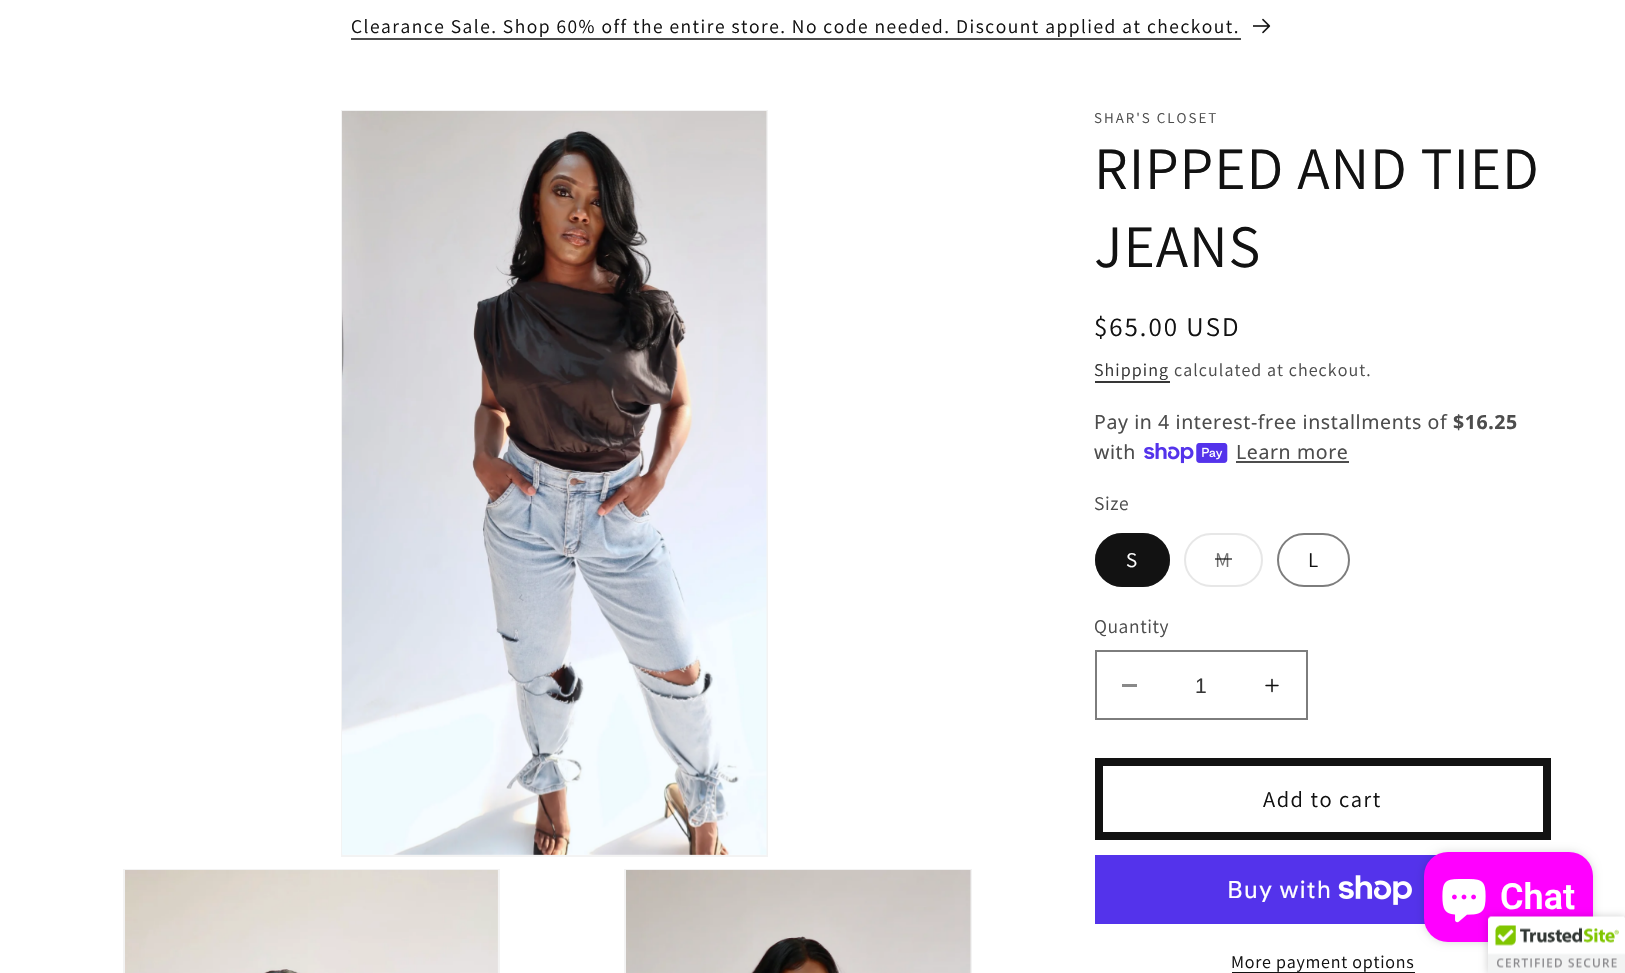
static SkFont makeFont(const char* family, int weight, float size, bool italic = false) {
  SkFontStyle style(weight, SkFontStyle::kNormal_Width,
    italic ? SkFontStyle::kItalic_Slant : SkFontStyle::kUpright_Slant);
  SkFont result(fontMgr->matchFamilyStyle(family, style), size);
  result.setSubpixel(true);
  return result;
}

static void text(SkCanvas* c, const char* s, float x, float y, const SkFont& font, SkColor color) {
  SkPaint ink(SkColor4f::FromColor(color));
  ink.setAntiAlias(true);
  c->drawString(s, x, y, font, ink);
}

static void spacedText(SkCanvas* c, const char* s, float x, float y, const SkFont& font, const SkPaint& ink, float letter, float word) {
  std::vector<SkGlyphID> glyphs(font.countText(s, strlen(s), SkTextEncoding::kUTF8));
  std::vector<float> xs(glyphs.size());
  font.textToGlyphs(s, strlen(s), SkTextEncoding::kUTF8, glyphs);
  font.getXPos(glyphs, xs, x);
  float extra = 0;
  for (size_t i = 0; i < glyphs.size(); i++) {
    xs[i] += extra;
    extra += letter + word * (glyphs[i] == font.unicharToGlyph(' '));
  }
  c->drawTextBlob(SkTextBlob::MakeFromPosHGlyphs(glyphs, xs, y, font), 0, 0, ink);
}

static void box(SkCanvas* c, float l, float t, float r, float b, SkColor color) {
  SkPaint ink(SkColor4f::FromColor(color));
  ink.setAntiAlias(true);
  c->drawRect(SkRect::MakeLTRB(l, t, r, b), ink);
}

static void roundBox(SkCanvas* c, float l, float t, float r, float b, float radius, SkColor color) {
  SkPaint ink(SkColor4f::FromColor(color));
  ink.setAntiAlias(true);
  c->drawRoundRect(SkRect::MakeLTRB(l, t, r, b), radius, radius, ink);
}

static void picture(SkCanvas* c, const char* path, float l, float t, float r, float b) {
  auto image = SkImages::DeferredFromEncodedData(SkData::MakeFromFileName(path));
  c->drawImageRect(image, SkRect::MakeLTRB(l, t, r, b), SkSamplingOptions());
}

void draw(SkCanvas* c) {
  SkPaint paint;
  paint.setAntiAlias(true);
  c->clear(0xffffffff);
  SkFont face1 = makeFont("Assistant", 400, 19.5f);
  paint.setColor(0xff121212);
  spacedText(c, "Clearance Sale. Shop 60% off the entire store. No code needed. Discount applied at checkout.", 351, 33, face1, paint, 1.5f, 0);
  box(c, 351, 38, 1241, 40, 0xff4d4d4d);
  picture(c, "img_01.png", 1253, 18, 1271, 34);
  paint.setStyle(SkPaint::kStroke_Style);
  paint.setStrokeWidth(2);
  paint.setColor(0xfff3f3f3);
  c->drawRect(SkRect::MakeLTRB(342, 111, 767, 856), paint);
  picture(c, "img_02.png", 342, 111, 767, 855);
  c->drawRect(SkRect::MakeLTRB(124, 870, 499, 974), paint);
  picture(c, "img_03.png", 125, 870, 498, 973);
  c->drawRect(SkRect::MakeLTRB(625, 870, 971, 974), paint);
  picture(c, "img_04.png", 626, 870, 971, 973);
  SkFont face2 = makeFont("Assistant", 400, 15);
  paint.setStyle(SkPaint::kFill_Style);
  paint.setColor(0xff4d4d4d);
  spacedText(c, "SHAR'S CLOSET", 1094, 123, face2, paint, 2, 0);
  SkFont face3 = makeFont("Assistant", 400, 60);
  paint.setColor(0xff121212);
  spacedText(c, "RIPPED AND TIED", 1094, 189, face3, paint, 0.9f, 0);
  spacedText(c, "JEANS", 1094, 267, face3, paint, 0.9f, 0);
  SkFont face4 = makeFont("Assistant", 400, 27);
  spacedText(c, "$65.00 USD", 1094, 336, face4, paint, 2, 0);
  SkFont face5 = makeFont("Assistant", 400, 18);
  paint.setColor(0xff363636);
  spacedText(c, "Shipping", 1094, 376, face5, paint, 1.05f, 0);
  box(c, 1095, 381, 1170, 383, 0xff363636);
  paint.setColor(0xff4d4d4d);
  spacedText(c, "calculated at checkout.", 1174, 376, face5, paint, 1.05f, 0);
  SkFont face6 = makeFont("Noto Sans", 400, 19.5f);
  spacedText(c, "Pay in 4 interest-free installments of", 1094, 429, face6, paint, 0.6f, 0);
  SkFont face7 = makeFont("Noto Sans", 700, 19.5f);
  spacedText(c, "$16.25", 1453, 429, face7, paint, 0.6f, 0);
  spacedText(c, "with", 1094, 459, face6, paint, 0.6f, 0);
  picture(c, "img_05.png", 1144, 443, 1228, 464);
  spacedText(c, "Learn more", 1236, 459, face6, paint, 0.6f, 0);
  box(c, 1236, 461, 1349, 463, 0xff4d4d4d);
  spacedText(c, "Size", 1094, 510, face1, paint, 0.6f, 0);
  roundBox(c, 1095, 533, 1170, 587, 27, 0xff121212);
  paint.setStyle(SkPaint::kStroke_Style);
  paint.setColor(0x8c121212);
  c->drawRoundRect(SkRect::MakeLTRB(1096, 534, 1169, 586), 26, 26, paint);
  SkFont face8 = makeFont("Assistant", 400, 21);
  paint.setStyle(SkPaint::kFill_Style);
  paint.setColor(0xffffffff);
  spacedText(c, "S", 1126, 567, face8, paint, 1.5f, 0);
  paint.setStyle(SkPaint::kStroke_Style);
  paint.setColor(0xffe7e7e7);
  c->drawRoundRect(SkRect::MakeLTRB(1185, 534, 1262, 586), 26, 26, paint);
  paint.setStyle(SkPaint::kFill_Style);
  paint.setColor(0xff717171);
  spacedText(c, "M", 1215, 567, face8, paint, 1.5f, 0);
  box(c, 1215, 558, 1232, 560, 0x99121212);
  paint.setStyle(SkPaint::kStroke_Style);
  paint.setColor(0xff7d7d7d);
  c->drawRoundRect(SkRect::MakeLTRB(1278, 534, 1349, 586), 26, 26, paint);
  paint.setStyle(SkPaint::kFill_Style);
  paint.setColor(0xff121212);
  spacedText(c, "L", 1308, 567, face8, paint, 1.5f, 0);
  paint.setColor(0xff4d4d4d);
  spacedText(c, "Quantity", 1094, 633, face1, paint, 0.6f, 0);
  box(c, 1122, 684, 1137, 687, 0xff898989);
  picture(c, "img_06.png", 1265, 678, 1279, 693);
  paint.setStyle(SkPaint::kStroke_Style);
  paint.setColor(0xff7d7d7d);
  c->drawRect(SkRect::MakeLTRB(1096, 651, 1307, 719), paint);
  SkFont face9 = makeFont("Liberation Sans", 400, 21);
  text(c, "1", 1195, 693, face9, 0xff363636);
  paint.setStrokeWidth(8);
  paint.setColor(0xff121212);
  c->drawRect(SkRect::MakeLTRB(1099, 762, 1547, 836), paint);
  SkFont face10 = makeFont("Assistant", 400, 22.5f);
  paint.setStyle(SkPaint::kFill_Style);
  spacedText(c, "Add to cart", 1263, 807, face10, paint, 1.5f, 0);
  box(c, 1095, 855, 1437, 924, 0xff5433eb);
  SkFont face11 = makeFont("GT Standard", 400, 24);
  paint.setColor(0xffffffff);
  spacedText(c, "Buy with", 1227, 898, face11, paint, 0.9f, 0);
  picture(c, "img_07.png", 1338, 875, 1412, 905);
  paint.setColor(0xff121212);
  spacedText(c, "More payment options", 1231, 968, face5, paint, 0.75f, 0);
  box(c, 1232, 972, 1415, 973, 0xff121212);
  paint.setColor(0x26000000);
  paint.setMaskFilter(SkMaskFilter::MakeBlur(kNormal_SkBlurStyle, 4));
  c->drawRoundRect(SkRect::MakeLTRB(1424, 852, 1593, 942), 24, 24, paint);
  paint.setMaskFilter(nullptr);
  roundBox(c, 1424, 852, 1593, 942, 24, 0xffff00ff);
  picture(c, "img_08.png", 1442, 879, 1486, 923);
  SkFont face12 = makeFont("Roboto", 600, 36);
  text(c, "Chat", 1500, 909, face12, 0xffffffff);
  paint.setColor(0x33000000);
  paint.setMaskFilter(SkMaskFilter::MakeBlur(kNormal_SkBlurStyle, 4));
  c->drawRoundRect(SkRect::MakeLTRB(1488, 917, 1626, 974), 3, 3, paint);
  paint.setMaskFilter(nullptr);
  picture(c, "img_09.png", 1488, 916, 1625, 973);
}
